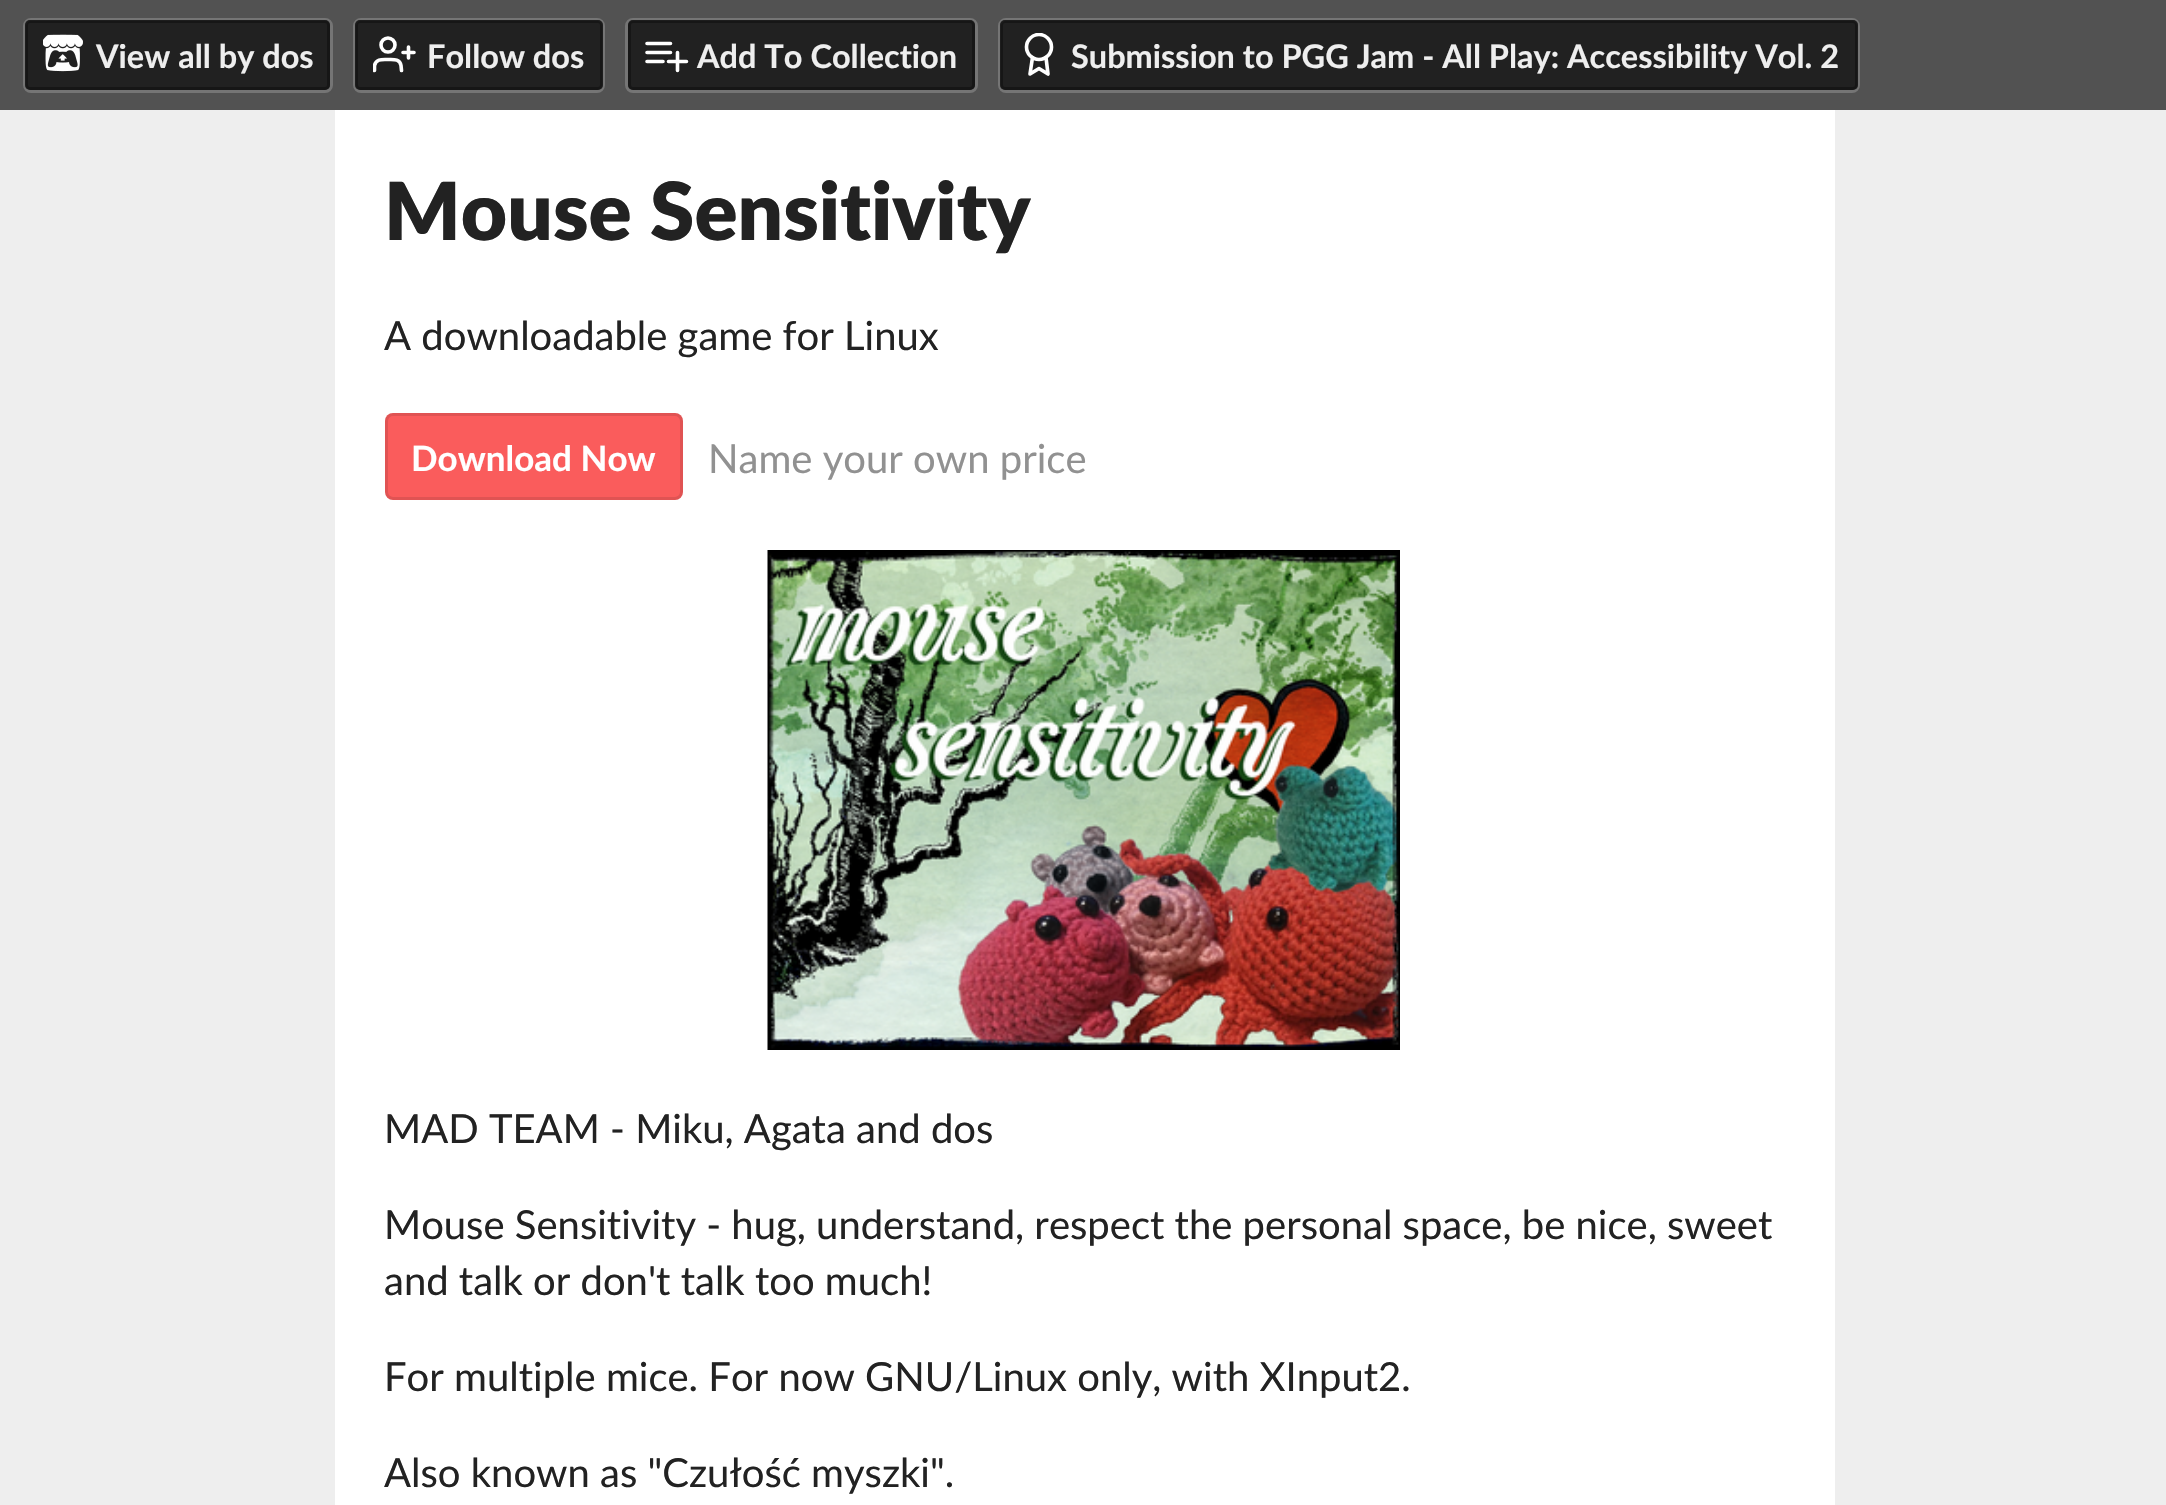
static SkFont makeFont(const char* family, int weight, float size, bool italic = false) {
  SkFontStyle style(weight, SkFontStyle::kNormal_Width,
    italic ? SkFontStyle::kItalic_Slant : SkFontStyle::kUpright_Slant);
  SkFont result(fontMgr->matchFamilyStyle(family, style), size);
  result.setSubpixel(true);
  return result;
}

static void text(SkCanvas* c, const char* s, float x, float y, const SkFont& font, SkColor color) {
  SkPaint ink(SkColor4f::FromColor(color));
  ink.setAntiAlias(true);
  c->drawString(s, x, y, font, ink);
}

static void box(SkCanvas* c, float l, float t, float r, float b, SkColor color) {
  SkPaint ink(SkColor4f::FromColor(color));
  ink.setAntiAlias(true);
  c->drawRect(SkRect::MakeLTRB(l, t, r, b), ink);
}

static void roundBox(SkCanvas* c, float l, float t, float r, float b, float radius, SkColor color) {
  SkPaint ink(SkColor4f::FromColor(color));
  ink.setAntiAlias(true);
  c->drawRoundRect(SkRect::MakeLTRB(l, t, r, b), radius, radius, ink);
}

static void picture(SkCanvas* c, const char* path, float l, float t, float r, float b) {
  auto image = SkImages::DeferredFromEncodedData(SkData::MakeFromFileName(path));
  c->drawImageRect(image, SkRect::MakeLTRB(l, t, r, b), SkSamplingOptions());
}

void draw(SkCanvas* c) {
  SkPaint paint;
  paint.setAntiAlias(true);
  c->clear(0xffeeeeee);
  box(c, 0, 0, 2166, 110, 0xff525252);
  paint.setStyle(SkPaint::kStroke_Style);
  paint.setStrokeWidth(3);
  paint.setColor(0xff757575);
  c->drawRoundRect(SkRect::MakeLTRB(24.5f, 19.5f, 331.5f, 91.5f), 6.5f, 6.5f, paint);
  roundBox(c, 25, 20, 330, 90, 5, 0x99000000);
  paint.setColor(0x800a0a0a);
  c->drawRoundRect(SkRect::MakeLTRB(26.5f, 21.5f, 328.5f, 88.5f), 3.5f, 3.5f, paint);
  picture(c, "img_01.png", 43, 34, 83, 72);
  SkFont face1 = makeFont("Lato", 700, 32.5f);
  text(c, "View all by dos", 96, 68, face1, 0xffeeeeee);
  paint.setColor(0xff757575);
  c->drawRoundRect(SkRect::MakeLTRB(354.5f, 19.5f, 603.5f, 91.5f), 6.5f, 6.5f, paint);
  roundBox(c, 355, 20, 603, 90, 5, 0x99000000);
  paint.setColor(0x800a0a0a);
  c->drawRoundRect(SkRect::MakeLTRB(356.5f, 21.5f, 601.5f, 88.5f), 3.5f, 3.5f, paint);
  c->save();
  c->clipRect(SkRect::MakeLTRB(373, 33, 418, 78));
  paint.setStrokeWidth(3.6f);
  paint.setStrokeCap(SkPaint::kRound_Cap);
  paint.setStrokeJoin(SkPaint::kRound_Join);
  paint.setColor(0xffffffff);
  c->drawPath(SkPathBuilder().moveTo(401.5f, 70.5f).lineTo(401, 65.5f).cubicTo(400, 58.5f, 393, 59.5f, 388, 59.5f).cubicTo(382.5f, 59.5f, 376, 58.5f, 374.5f, 65.5f).lineTo(374.5f, 70.5f).detach(), paint);
  c->restore();
  paint.setStrokeCap(SkPaint::kButt_Cap);
  paint.setStrokeJoin(SkPaint::kMiter_Join);
  c->drawCircle(388, 45, 7, paint);
  paint.setStrokeCap(SkPaint::kRound_Cap);
  paint.setStrokeJoin(SkPaint::kRound_Join);
  c->drawPath(SkPathBuilder().moveTo(408.5f, 47).lineTo(408.5f, 58).moveTo(414, 52.5f).lineTo(403, 52.5f).detach(), paint);
  text(c, "Follow dos", 427, 68, face1, 0xffeeeeee);
  paint.setStrokeWidth(3);
  paint.setStrokeCap(SkPaint::kButt_Cap);
  paint.setStrokeJoin(SkPaint::kMiter_Join);
  paint.setColor(0xff757575);
  c->drawRoundRect(SkRect::MakeLTRB(626.5f, 19.5f, 976.5f, 91.5f), 6.5f, 6.5f, paint);
  roundBox(c, 628, 20, 975, 90, 5, 0x99000000);
  paint.setColor(0x800a0a0a);
  c->drawRoundRect(SkRect::MakeLTRB(629.5f, 21.5f, 973.5f, 88.5f), 3.5f, 3.5f, paint);
  paint.setStrokeWidth(3.6f);
  paint.setStrokeCap(SkPaint::kRound_Cap);
  paint.setStrokeJoin(SkPaint::kRound_Join);
  paint.setColor(0xffffffff);
  c->drawPath(SkPathBuilder().moveTo(647, 43.5f).lineTo(670.5f, 43.5f).moveTo(647, 52.5f).lineTo(670.5f, 52.5f).moveTo(647, 61.5f).lineTo(663, 61.5f).moveTo(677.5f, 52.5f).lineTo(677.5f, 70.5f).moveTo(668.5f, 61.5f).lineTo(686.5f, 61.5f).detach(), paint);
  text(c, "Add To Collection", 697, 68, face1, 0xffeeeeee);
  paint.setStrokeWidth(3);
  paint.setStrokeCap(SkPaint::kButt_Cap);
  paint.setStrokeJoin(SkPaint::kMiter_Join);
  paint.setColor(0xff757575);
  c->drawRoundRect(SkRect::MakeLTRB(999.5f, 19.5f, 1858.5f, 91.5f), 6.5f, 6.5f, paint);
  roundBox(c, 1000, 20, 1858, 90, 5, 0x99000000);
  paint.setColor(0x800a0a0a);
  c->drawRoundRect(SkRect::MakeLTRB(1001.5f, 21.5f, 1856.5f, 88.5f), 3.5f, 3.5f, paint);
  c->save();
  c->clipRect(SkRect::MakeLTRB(1018, 33, 1060, 78));
  paint.setStrokeWidth(3.6f);
  paint.setColor(0xffffffff);
  c->drawCircle(1039, 47, 12.5f, paint);
  c->restore();
  paint.setStrokeCap(SkPaint::kRound_Cap);
  paint.setStrokeJoin(SkPaint::kRound_Join);
  c->drawPath(SkPathBuilder().moveTo(1032.5f, 57.5f).lineTo(1030, 74).lineTo(1039, 68.5f).lineTo(1048, 74).lineTo(1046, 57.5f).detach(), paint);
  text(c, "Submission to PGG Jam - All Play: Accessibility Vol. 2", 1071, 68, face1, 0xffeeeeee);
  box(c, 335, 110, 1835, 1505, 0xffffffff);
  SkFont face2 = makeFont("Lato", 900, 80);
  text(c, "Mouse Sensitivity", 384, 240, face2, 0xff222222);
  SkFont face3 = makeFont("Lato", 400, 40);
  text(c, "A downloadable game for Linux", 384, 350, face3, 0xff222222);
  roundBox(c, 385, 413, 683, 500, 8, 0xfffa5c5c);
  paint.setStrokeWidth(3);
  paint.setStrokeCap(SkPaint::kButt_Cap);
  paint.setStrokeJoin(SkPaint::kMiter_Join);
  paint.setColor(0x1a000000);
  c->drawRoundRect(SkRect::MakeLTRB(386.5f, 414.5f, 681.5f, 498.5f), 6.5f, 6.5f, paint);
  SkFont face4 = makeFont("Lato", 700, 35);
  text(c, "Download Now", 411, 471, face4, 0xffffffff);
  text(c, "Name your own price", 708, 473, face3, 0xff919191);
  picture(c, "img_02.png", 767, 550, 1400, 1050);
  text(c, "MAD TEAM - Miku, Agata and dos", 384, 1143, face3, 0xff222222);
  text(c, "Mouse Sensitivity - hug, understand, respect the personal space, be nice, sweet", 384, 1239, face3, 0xff222222);
  text(c, "and talk or don't talk too much!", 384, 1295, face3, 0xff222222);
  text(c, "For multiple mice. For now GNU/Linux only, with XInput2.", 384, 1391, face3, 0xff222222);
  text(c, "Also known as \"Czułość myszki\".", 384, 1487, face3, 0xff222222);
}
